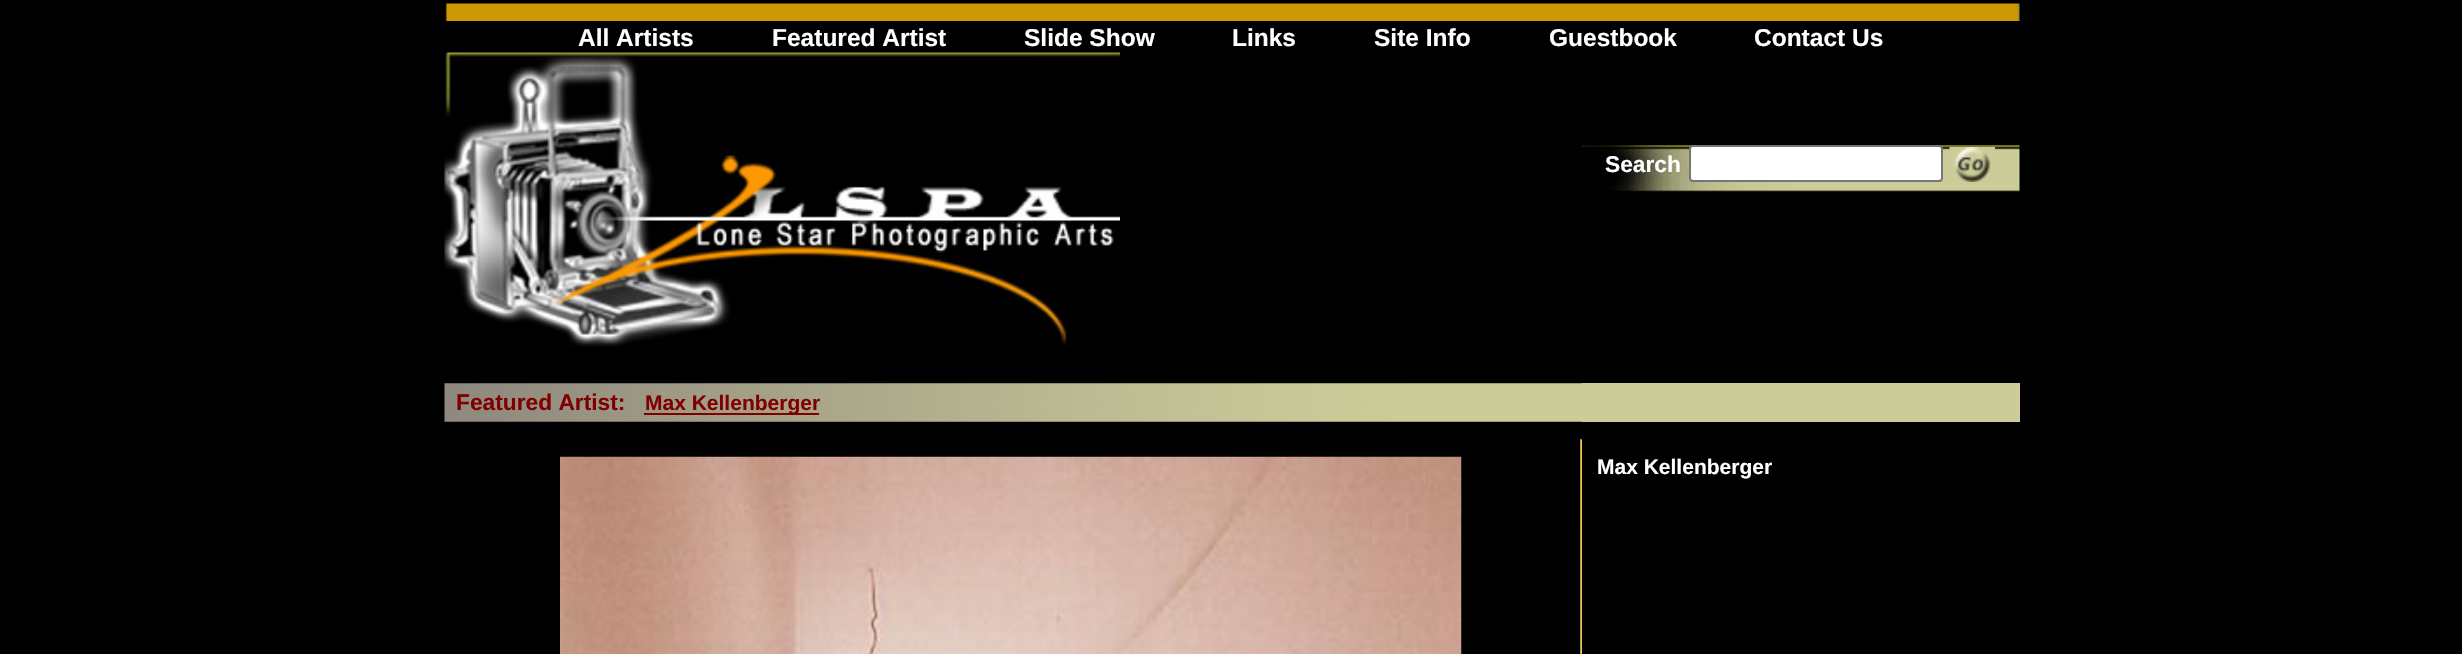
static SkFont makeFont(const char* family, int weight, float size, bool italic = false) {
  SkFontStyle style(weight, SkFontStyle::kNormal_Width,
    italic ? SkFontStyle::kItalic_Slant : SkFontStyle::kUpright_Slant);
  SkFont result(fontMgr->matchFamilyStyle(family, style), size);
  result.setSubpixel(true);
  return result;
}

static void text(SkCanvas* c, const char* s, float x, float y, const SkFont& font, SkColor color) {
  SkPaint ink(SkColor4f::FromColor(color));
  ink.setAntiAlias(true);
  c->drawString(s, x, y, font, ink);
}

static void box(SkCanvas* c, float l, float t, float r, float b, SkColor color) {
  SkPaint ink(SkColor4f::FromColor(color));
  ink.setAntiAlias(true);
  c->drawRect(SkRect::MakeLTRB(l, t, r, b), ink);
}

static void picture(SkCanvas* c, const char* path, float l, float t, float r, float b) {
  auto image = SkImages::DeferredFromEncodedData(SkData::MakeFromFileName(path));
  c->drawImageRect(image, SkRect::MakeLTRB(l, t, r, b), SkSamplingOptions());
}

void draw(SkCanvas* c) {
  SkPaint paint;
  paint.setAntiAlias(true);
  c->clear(0xff000000);
  picture(c, "img_01.png", 445, 3, 2020, 21);
  SkFont face1 = makeFont("Liberation Sans", 700, 24.5f);
  text(c, "All Artists", 578, 46, face1, 0xffffffff);
  text(c, "Featured Artist", 772, 46, face1, 0xffffffff);
  text(c, "Slide Show", 1024, 46, face1, 0xffffffff);
  text(c, "Links", 1232, 46, face1, 0xffffffff);
  text(c, "Site Info", 1374, 46, face1, 0xffffffff);
  text(c, "Guestbook", 1549, 46, face1, 0xffffffff);
  text(c, "Contact Us", 1754, 46, face1, 0xffffffff);
  picture(c, "img_02.png", 444, 52, 1120, 347);
  picture(c, "img_03.png", 1582, 145, 2020, 192);
  SkFont face2 = makeFont("Liberation Sans", 700, 22.75f);
  text(c, "Search", 1605, 172, face2, 0xffffffff);
  paint.setColor(0xffffffff);
  c->drawRoundRect(SkRect::MakeLTRB(1690, 146, 1942, 181), 3, 3, paint);
  paint.setStyle(SkPaint::kStroke_Style);
  paint.setStrokeWidth(2);
  paint.setColor(0xff767676);
  c->drawRoundRect(SkRect::MakeLTRB(1690, 146, 1942, 181), 3, 3, paint);
  picture(c, "img_04.png", 1949, 147, 1995, 182);
  picture(c, "img_05.png", 444, 383, 1582, 422);
  text(c, "Featured Artist:", 456, 410, face2, 0xff800000);
  box(c, 644, 413, 819, 415, 0xff800000);
  SkFont face3 = makeFont("Liberation Sans", 700, 21);
  text(c, "Max Kellenberger", 645, 410, face3, 0xff800000);
  box(c, 1582, 383, 2020, 422, 0xffcccc99);
  picture(c, "img_06.png", 560, 456, 1462, 654);
  picture(c, "img_07.png", 1580, 439, 1582, 654);
  text(c, "Max Kellenberger", 1597, 474, face3, 0xffffffff);
}
